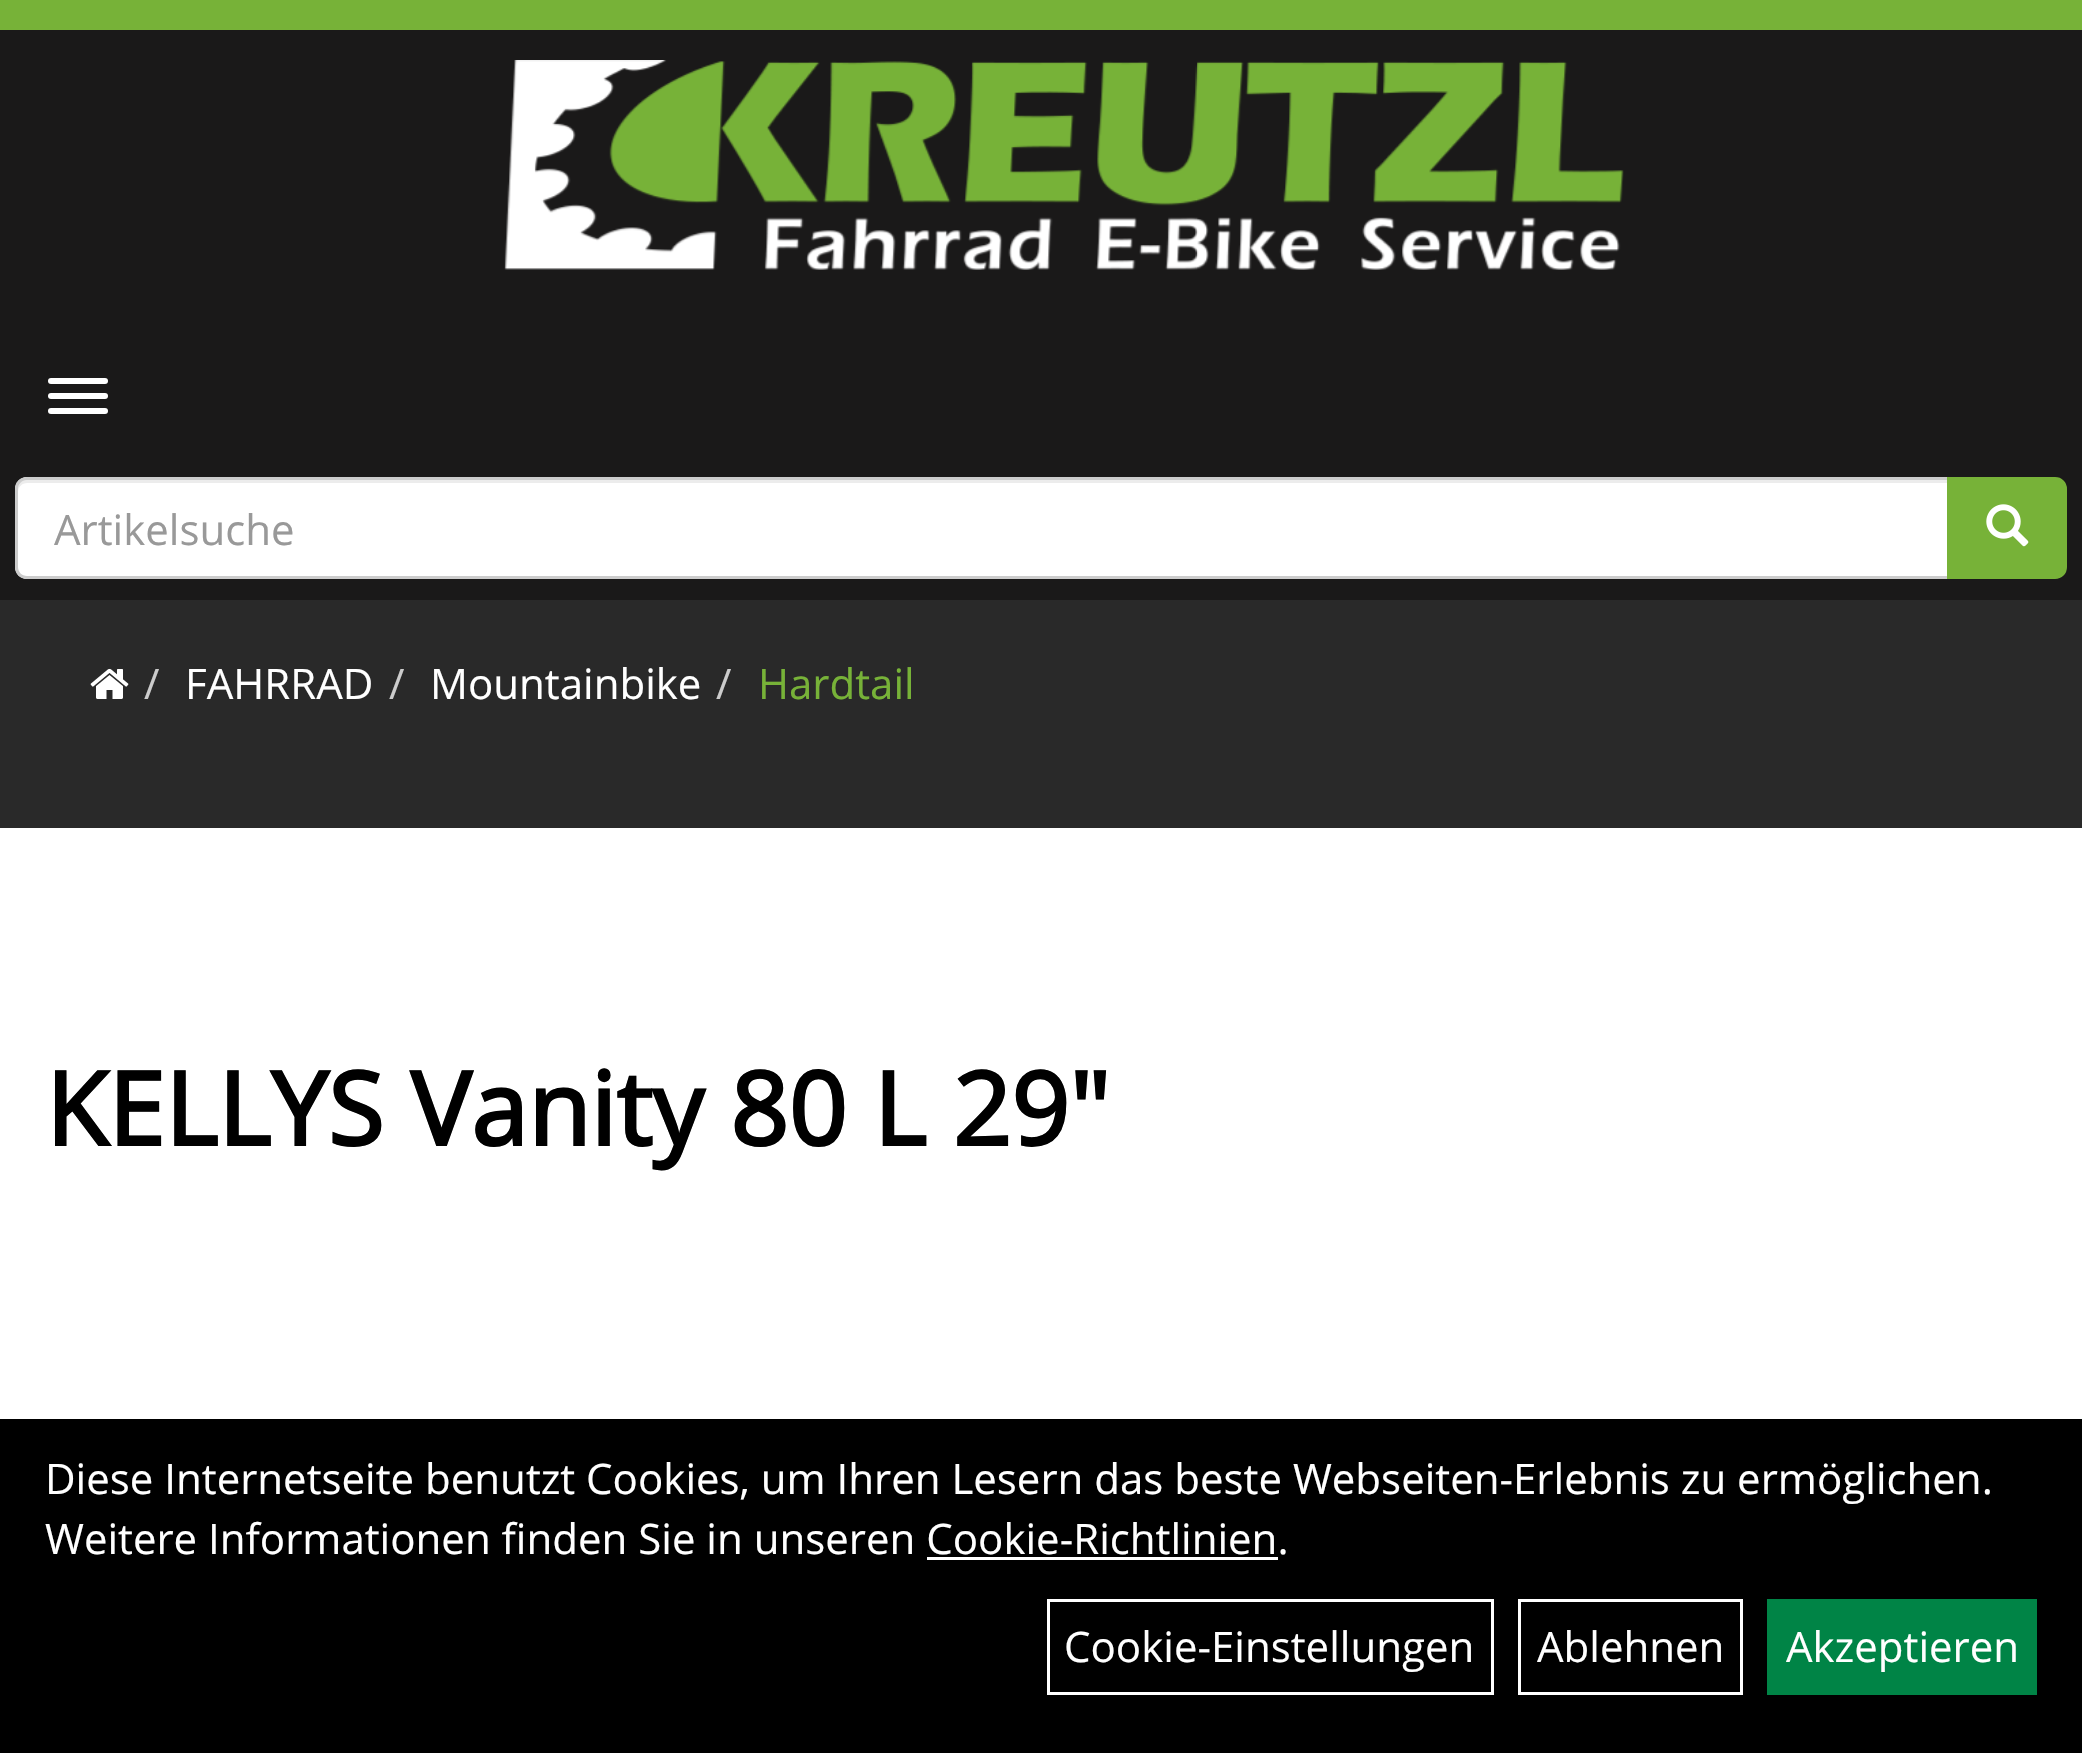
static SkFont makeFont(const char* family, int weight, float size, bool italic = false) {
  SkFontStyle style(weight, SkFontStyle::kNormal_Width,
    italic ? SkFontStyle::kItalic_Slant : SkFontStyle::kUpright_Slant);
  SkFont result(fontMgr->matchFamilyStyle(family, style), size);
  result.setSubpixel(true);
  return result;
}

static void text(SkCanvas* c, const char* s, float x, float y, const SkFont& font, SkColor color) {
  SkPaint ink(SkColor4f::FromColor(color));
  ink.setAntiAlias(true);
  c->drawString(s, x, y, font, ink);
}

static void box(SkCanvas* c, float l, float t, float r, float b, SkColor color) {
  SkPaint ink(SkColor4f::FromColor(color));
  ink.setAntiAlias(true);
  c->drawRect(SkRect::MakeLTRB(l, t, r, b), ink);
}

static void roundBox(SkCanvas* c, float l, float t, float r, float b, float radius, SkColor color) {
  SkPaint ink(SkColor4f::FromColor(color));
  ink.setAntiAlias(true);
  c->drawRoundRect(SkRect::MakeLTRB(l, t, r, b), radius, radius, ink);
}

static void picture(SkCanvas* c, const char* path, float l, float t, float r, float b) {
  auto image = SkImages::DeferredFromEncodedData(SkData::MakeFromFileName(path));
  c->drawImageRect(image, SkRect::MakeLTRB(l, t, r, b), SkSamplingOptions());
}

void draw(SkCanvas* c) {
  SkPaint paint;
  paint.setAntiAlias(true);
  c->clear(0xffffffff);
  box(c, 0, 30, 2082, 600, 0xff1a1919);
  box(c, 0, 0, 2082, 30, 0xff77b238);
  picture(c, "img_01.png", 504, 60, 1624, 270);
  roundBox(c, 48, 378, 108, 384, 3, 0xffffffff);
  roundBox(c, 48, 393, 108, 399, 3, 0xffffffff);
  roundBox(c, 48, 408, 108, 414, 3, 0xffffffff);
  paint.setColor(0xffffffff);
  c->drawPath(SkPathBuilder().moveTo(27, 477).lineTo(1947, 477).lineTo(1947, 579).lineTo(27, 579).cubicTo(20.5f, 579, 15, 573.5f, 15, 567).lineTo(15, 489).cubicTo(15, 482.5f, 20.5f, 477, 27, 477).close().detach(), paint);
  paint.setColor(0xffececec);
  c->drawPath(SkPathBuilder().moveTo(27, 483).lineTo(1947, 483).lineTo(1947, 480).lineTo(27, 480).cubicTo(22, 480, 18, 484, 18, 489).lineTo(18, 492).cubicTo(18, 487, 22, 483, 27, 483).close().detach(), paint);
  paint.setColor(0xffcccccc);
  c->drawPath(SkPathBuilder(SkPathFillType::kEvenOdd).moveTo(27, 477).lineTo(1947, 477).lineTo(1947, 579).lineTo(27, 579).cubicTo(20, 579, 15, 574, 15, 567).lineTo(15, 489).cubicTo(15, 482, 20, 477, 27, 477).close().moveTo(27, 480).lineTo(1947, 480).lineTo(1947, 576).lineTo(27, 576).cubicTo(22, 576, 18, 572, 18, 567).lineTo(18, 489).cubicTo(18, 484, 22, 480, 27, 480).close().detach(), paint);
  SkFont face1 = makeFont("Open Sans", 400, 42);
  text(c, "Artikelsuche", 54, 545, face1, 0xff999999);
  paint.setColor(0xff77b238);
  c->drawPath(SkPathBuilder().moveTo(1948.5f, 478.5f).lineTo(2055, 478.5f).cubicTo(2061, 478.5f, 2065.5f, 483, 2065.5f, 489).lineTo(2065.5f, 567).cubicTo(2065.5f, 573, 2061, 577.5f, 2055, 577.5f).lineTo(1948.5f, 577.5f).close().detach(), paint);
  paint.setStyle(SkPaint::kStroke_Style);
  paint.setStrokeWidth(3);
  c->drawPath(SkPathBuilder().moveTo(1948.5f, 478.5f).lineTo(2055, 478.5f).cubicTo(2061, 478.5f, 2065.5f, 483, 2065.5f, 489).lineTo(2065.5f, 567).cubicTo(2065.5f, 573, 2061, 577.5f, 2055, 577.5f).lineTo(1948.5f, 577.5f).close().detach(), paint);
  picture(c, "img_02.png", 1986, 504, 2029, 547);
  box(c, 0, 600, 2082, 828, 0xff292929);
  picture(c, "img_03.png", 90, 668, 129, 699);
  text(c, "/", 144, 699, face1, 0xffcccccc);
  text(c, "FAHRRAD", 185, 699, face1, 0xffffffff);
  text(c, "/", 389, 699, face1, 0xffcccccc);
  text(c, "Mountainbike", 430, 699, face1, 0xffffffff);
  text(c, "/", 716, 699, face1, 0xffcccccc);
  text(c, "Hardtail", 758, 699, face1, 0xff77b238);
  SkFont face2 = makeFont("Open Sans", 700, 102);
  text(c, "KELLYS Vanity 80 L 29\"", 45, 1146, face2, 0xff000000);
  box(c, 0, 1419, 2082, 1753, 0xff000000);
  text(c, "Diese Internetseite benutzt Cookies, um Ihren Lesern das beste Webseiten-Erlebnis zu ermöglichen.", 45, 1494, face1, 0xffffffff);
  text(c, "Weitere Informationen finden Sie in unseren Cookie-Richtlinien.", 45, 1554, face1, 0xffffffff);
  box(c, 927, 1557, 1278, 1560, 0xffffffff);
  paint.setColor(0xffffffff);
  c->drawRect(SkRect::MakeLTRB(1048.5f, 1600.5f, 1492.5f, 1693.5f), paint);
  text(c, "Cookie-Einstellungen", 1064, 1662, face1, 0xffffffff);
  c->drawRect(SkRect::MakeLTRB(1519.5f, 1600.5f, 1741.5f, 1693.5f), paint);
  text(c, "Ablehnen", 1537, 1662, face1, 0xffffffff);
  box(c, 1767, 1599, 2037, 1695, 0xff008446);
  text(c, "Akzeptieren", 1786, 1662, face1, 0xffffffff);
}
